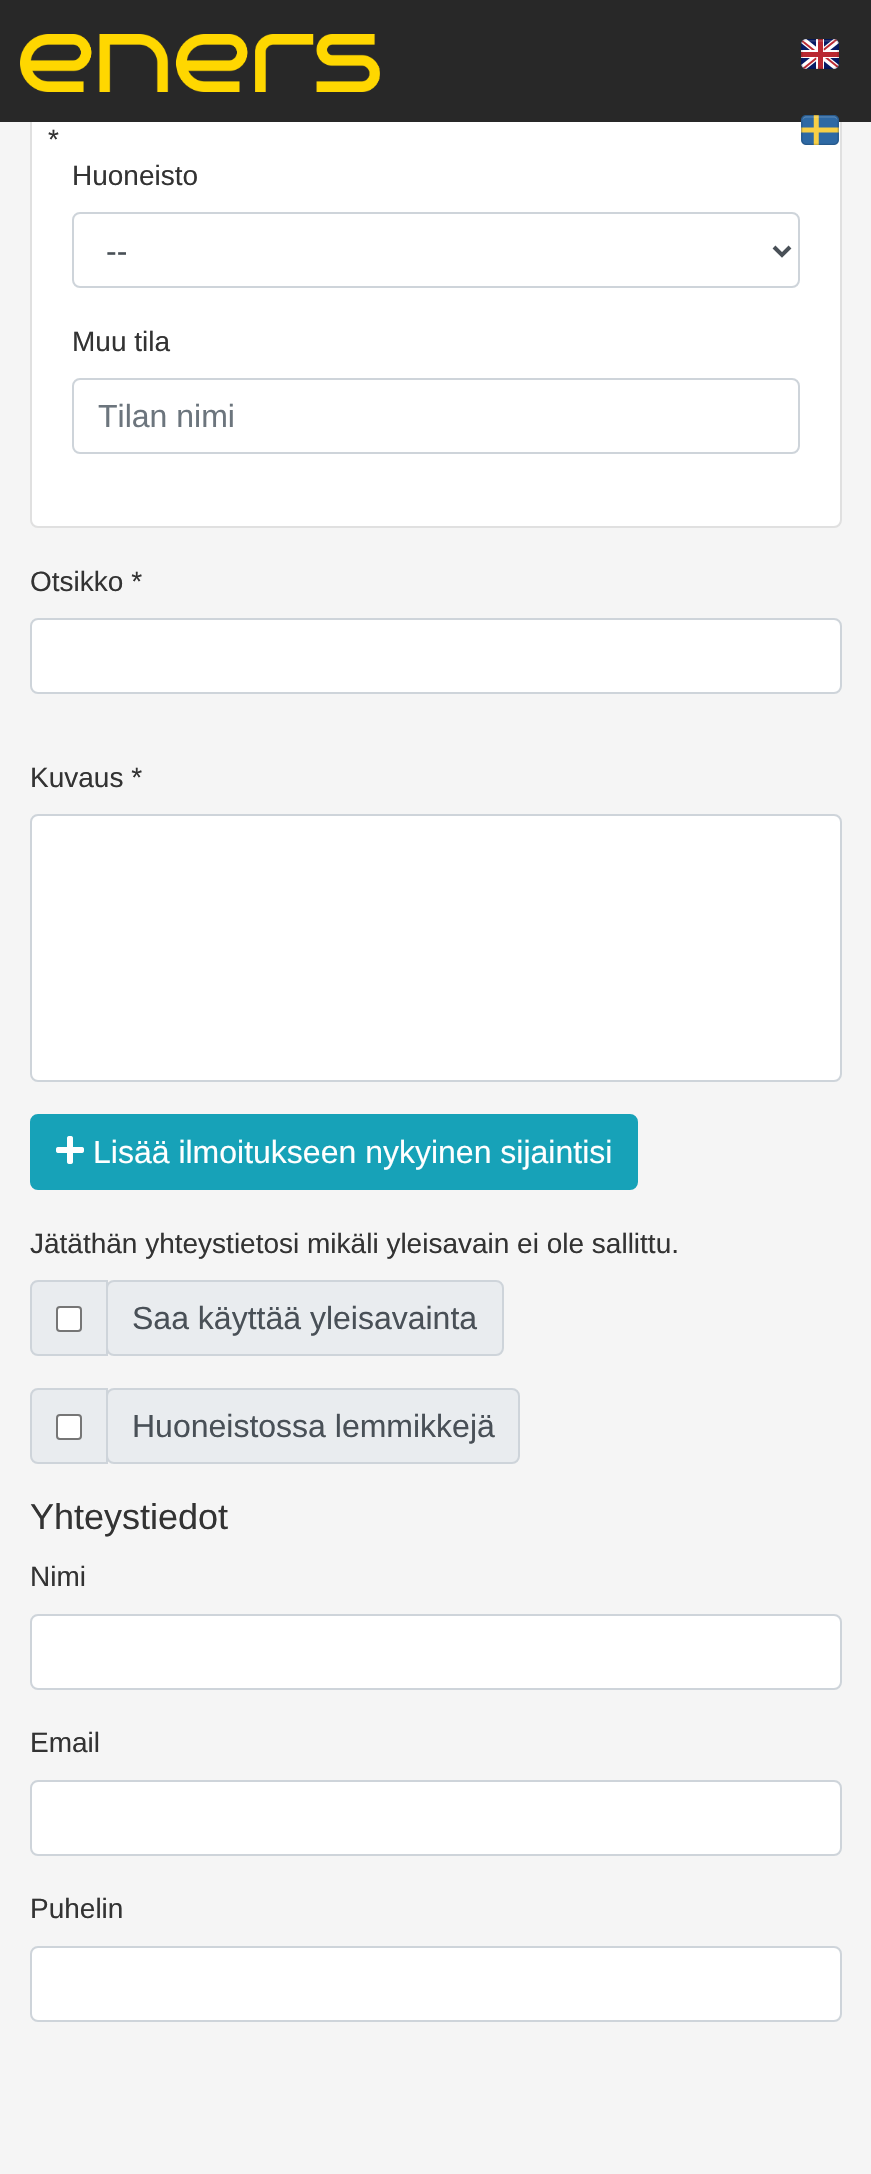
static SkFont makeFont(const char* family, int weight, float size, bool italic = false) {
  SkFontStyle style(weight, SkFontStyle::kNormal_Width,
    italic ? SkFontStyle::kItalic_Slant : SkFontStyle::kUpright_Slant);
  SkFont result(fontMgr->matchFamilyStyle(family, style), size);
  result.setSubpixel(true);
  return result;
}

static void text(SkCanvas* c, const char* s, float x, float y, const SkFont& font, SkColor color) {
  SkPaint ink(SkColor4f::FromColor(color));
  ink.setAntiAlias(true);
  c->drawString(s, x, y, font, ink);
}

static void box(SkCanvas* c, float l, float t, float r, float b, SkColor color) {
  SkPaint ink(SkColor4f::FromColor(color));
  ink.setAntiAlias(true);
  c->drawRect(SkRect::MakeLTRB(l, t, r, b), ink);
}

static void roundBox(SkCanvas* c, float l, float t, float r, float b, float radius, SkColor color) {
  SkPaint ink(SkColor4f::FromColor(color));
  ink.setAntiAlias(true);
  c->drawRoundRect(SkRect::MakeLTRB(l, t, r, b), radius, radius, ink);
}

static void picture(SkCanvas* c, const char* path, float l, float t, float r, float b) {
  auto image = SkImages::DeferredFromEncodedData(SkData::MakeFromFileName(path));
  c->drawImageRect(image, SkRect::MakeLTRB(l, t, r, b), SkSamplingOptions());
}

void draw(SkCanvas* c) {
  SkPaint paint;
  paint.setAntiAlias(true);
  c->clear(0xfff5f5f5);
  roundBox(c, 30, 112, 842, 528, 8, 0xffffffff);
  paint.setStyle(SkPaint::kStroke_Style);
  paint.setStrokeWidth(2);
  paint.setColor(0x1f000000);
  c->drawRoundRect(SkRect::MakeLTRB(31, 113, 841, 527), 7, 7, paint);
  box(c, 0, 0, 871, 122, 0xff282828);
  picture(c, "img_01.png", 20, 34, 380, 92);
  picture(c, "img_02.png", 801, 39, 839, 69);
  picture(c, "img_03.png", 801, 115, 839, 145);
  SkFont face1 = makeFont("Liberation Sans", 400, 28);
  text(c, "*", 48, 149, face1, 0xff333333);
  text(c, "Huoneisto", 72, 185, face1, 0xff333333);
  paint.setColor(0xffced4da);
  c->drawRoundRect(SkRect::MakeLTRB(73, 213, 799, 287), 7, 7, paint);
  paint.setStrokeWidth(4);
  paint.setColor(0xff495057);
  c->drawPath(SkPathBuilder().moveTo(774, 247).lineTo(782, 255).lineTo(790, 247).detach(), paint);
  SkFont face2 = makeFont("Liberation Sans", 400, 32);
  text(c, "--", 106, 262, face2, 0xff495057);
  text(c, "Muu tila", 72, 351, face1, 0xff333333);
  paint.setStrokeWidth(2);
  paint.setColor(0xffced4da);
  c->drawRoundRect(SkRect::MakeLTRB(73, 379, 799, 453), 7, 7, paint);
  text(c, "Tilan nimi", 98, 427, face2, 0xff6c757d);
  text(c, "Otsikko *", 30, 591, face1, 0xff333333);
  paint.setStyle(SkPaint::kFill_Style);
  paint.setColor(0xffffffff);
  c->drawRoundRect(SkRect::MakeLTRB(31, 619, 841, 693), 7, 7, paint);
  paint.setStyle(SkPaint::kStroke_Style);
  paint.setColor(0xffced4da);
  c->drawRoundRect(SkRect::MakeLTRB(31, 619, 841, 693), 7, 7, paint);
  text(c, "Kuvaus *", 30, 787, face1, 0xff333333);
  paint.setStyle(SkPaint::kFill_Style);
  paint.setColor(0xffffffff);
  c->drawRoundRect(SkRect::MakeLTRB(31, 815, 841, 1081), 7, 7, paint);
  paint.setStyle(SkPaint::kStroke_Style);
  paint.setColor(0xffced4da);
  c->drawRoundRect(SkRect::MakeLTRB(31, 815, 841, 1081), 7, 7, paint);
  paint.setStyle(SkPaint::kFill_Style);
  paint.setColor(0xff17a2b8);
  c->drawRoundRect(SkRect::MakeLTRB(31, 1115, 637, 1189), 7, 7, paint);
  paint.setStyle(SkPaint::kStroke_Style);
  c->drawRoundRect(SkRect::MakeLTRB(31, 1115, 637, 1189), 7, 7, paint);
  picture(c, "img_04.png", 56, 1136, 84, 1164);
  text(c, "Lisää ilmoitukseen nykyinen sijaintisi", 93, 1163, face2, 0xffffffff);
  text(c, "Jätäthän yhteystietosi mikäli yleisavain ei ole sallittu.", 30, 1253, face1, 0xff333333);
  paint.setStyle(SkPaint::kFill_Style);
  paint.setColor(0xffe9ecef);
  c->drawPath(SkPathBuilder().moveTo(38, 1281).lineTo(107, 1281).lineTo(107, 1355).lineTo(38, 1355).cubicTo(34, 1355, 31, 1352, 31, 1348).lineTo(31, 1288).cubicTo(31, 1284, 34, 1281, 38, 1281).close().detach(), paint);
  paint.setStyle(SkPaint::kStroke_Style);
  paint.setColor(0xffced4da);
  c->drawPath(SkPathBuilder().moveTo(38, 1281).lineTo(107, 1281).lineTo(107, 1355).lineTo(38, 1355).cubicTo(34, 1355, 31, 1352, 31, 1348).lineTo(31, 1288).cubicTo(31, 1284, 34, 1281, 38, 1281).close().detach(), paint);
  paint.setStyle(SkPaint::kFill_Style);
  paint.setColor(0xffffffff);
  c->drawRoundRect(SkRect::MakeLTRB(57, 1307, 81, 1331), 3, 3, paint);
  paint.setStyle(SkPaint::kStroke_Style);
  paint.setColor(0xff767676);
  c->drawRoundRect(SkRect::MakeLTRB(57, 1307, 81, 1331), 3, 3, paint);
  paint.setStyle(SkPaint::kFill_Style);
  paint.setColor(0xffe9ecef);
  c->drawRoundRect(SkRect::MakeLTRB(107, 1281, 503, 1355), 7, 7, paint);
  paint.setStyle(SkPaint::kStroke_Style);
  paint.setColor(0xffced4da);
  c->drawRoundRect(SkRect::MakeLTRB(107, 1281, 503, 1355), 7, 7, paint);
  text(c, "Saa käyttää yleisavainta", 132, 1329, face2, 0xff495057);
  paint.setStyle(SkPaint::kFill_Style);
  paint.setColor(0xffe9ecef);
  c->drawPath(SkPathBuilder().moveTo(38, 1389).lineTo(107, 1389).lineTo(107, 1463).lineTo(38, 1463).cubicTo(34, 1463, 31, 1460, 31, 1456).lineTo(31, 1396).cubicTo(31, 1392, 34, 1389, 38, 1389).close().detach(), paint);
  paint.setStyle(SkPaint::kStroke_Style);
  paint.setColor(0xffced4da);
  c->drawPath(SkPathBuilder().moveTo(38, 1389).lineTo(107, 1389).lineTo(107, 1463).lineTo(38, 1463).cubicTo(34, 1463, 31, 1460, 31, 1456).lineTo(31, 1396).cubicTo(31, 1392, 34, 1389, 38, 1389).close().detach(), paint);
  paint.setStyle(SkPaint::kFill_Style);
  paint.setColor(0xffffffff);
  c->drawRoundRect(SkRect::MakeLTRB(57, 1415, 81, 1439), 3, 3, paint);
  paint.setStyle(SkPaint::kStroke_Style);
  paint.setColor(0xff767676);
  c->drawRoundRect(SkRect::MakeLTRB(57, 1415, 81, 1439), 3, 3, paint);
  paint.setStyle(SkPaint::kFill_Style);
  paint.setColor(0xffe9ecef);
  c->drawRoundRect(SkRect::MakeLTRB(107, 1389, 519, 1463), 7, 7, paint);
  paint.setStyle(SkPaint::kStroke_Style);
  paint.setColor(0xffced4da);
  c->drawRoundRect(SkRect::MakeLTRB(107, 1389, 519, 1463), 7, 7, paint);
  text(c, "Huoneistossa lemmikkejä", 132, 1437, face2, 0xff495057);
  SkFont face3 = makeFont("Liberation Sans", 400, 36);
  text(c, "Yhteystiedot", 30, 1529, face3, 0xff333333);
  text(c, "Nimi", 30, 1586, face1, 0xff333333);
  paint.setStyle(SkPaint::kFill_Style);
  paint.setColor(0xffffffff);
  c->drawRoundRect(SkRect::MakeLTRB(31, 1615, 841, 1689), 7, 7, paint);
  paint.setStyle(SkPaint::kStroke_Style);
  paint.setColor(0xffced4da);
  c->drawRoundRect(SkRect::MakeLTRB(31, 1615, 841, 1689), 7, 7, paint);
  text(c, "Email", 30, 1752, face1, 0xff333333);
  paint.setStyle(SkPaint::kFill_Style);
  paint.setColor(0xffffffff);
  c->drawRoundRect(SkRect::MakeLTRB(31, 1781, 841, 1855), 7, 7, paint);
  paint.setStyle(SkPaint::kStroke_Style);
  paint.setColor(0xffced4da);
  c->drawRoundRect(SkRect::MakeLTRB(31, 1781, 841, 1855), 7, 7, paint);
  text(c, "Puhelin", 30, 1918, face1, 0xff333333);
  paint.setStyle(SkPaint::kFill_Style);
  paint.setColor(0xffffffff);
  c->drawRoundRect(SkRect::MakeLTRB(31, 1947, 841, 2021), 7, 7, paint);
  paint.setStyle(SkPaint::kStroke_Style);
  paint.setColor(0xffced4da);
  c->drawRoundRect(SkRect::MakeLTRB(31, 1947, 841, 2021), 7, 7, paint);
}
